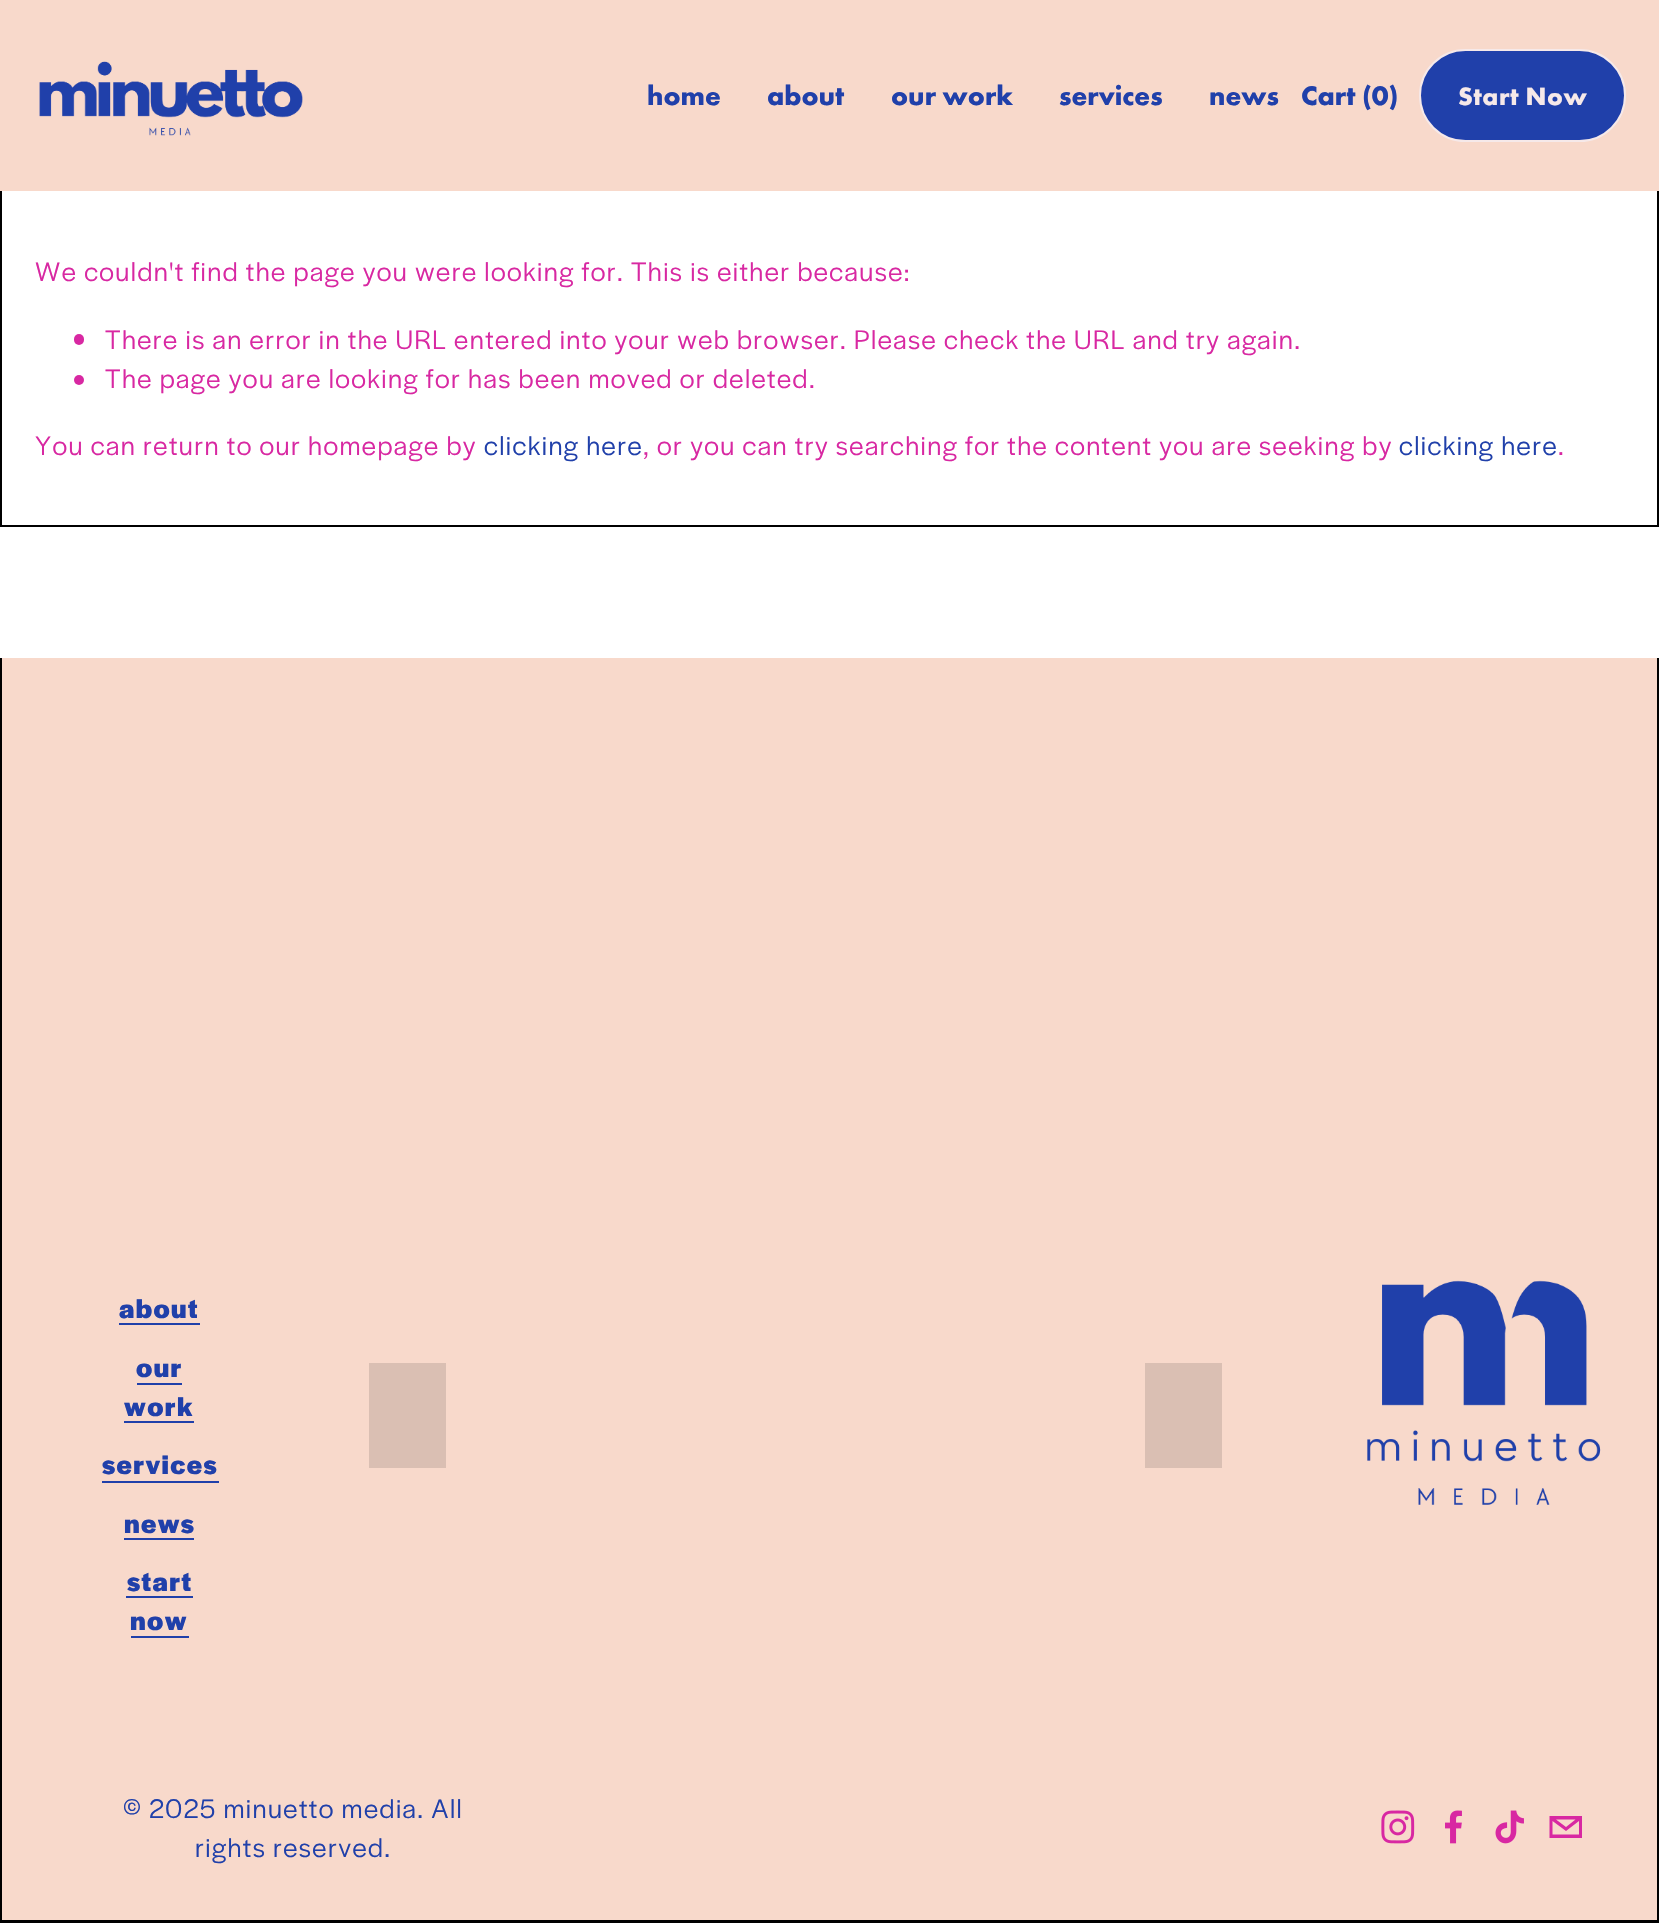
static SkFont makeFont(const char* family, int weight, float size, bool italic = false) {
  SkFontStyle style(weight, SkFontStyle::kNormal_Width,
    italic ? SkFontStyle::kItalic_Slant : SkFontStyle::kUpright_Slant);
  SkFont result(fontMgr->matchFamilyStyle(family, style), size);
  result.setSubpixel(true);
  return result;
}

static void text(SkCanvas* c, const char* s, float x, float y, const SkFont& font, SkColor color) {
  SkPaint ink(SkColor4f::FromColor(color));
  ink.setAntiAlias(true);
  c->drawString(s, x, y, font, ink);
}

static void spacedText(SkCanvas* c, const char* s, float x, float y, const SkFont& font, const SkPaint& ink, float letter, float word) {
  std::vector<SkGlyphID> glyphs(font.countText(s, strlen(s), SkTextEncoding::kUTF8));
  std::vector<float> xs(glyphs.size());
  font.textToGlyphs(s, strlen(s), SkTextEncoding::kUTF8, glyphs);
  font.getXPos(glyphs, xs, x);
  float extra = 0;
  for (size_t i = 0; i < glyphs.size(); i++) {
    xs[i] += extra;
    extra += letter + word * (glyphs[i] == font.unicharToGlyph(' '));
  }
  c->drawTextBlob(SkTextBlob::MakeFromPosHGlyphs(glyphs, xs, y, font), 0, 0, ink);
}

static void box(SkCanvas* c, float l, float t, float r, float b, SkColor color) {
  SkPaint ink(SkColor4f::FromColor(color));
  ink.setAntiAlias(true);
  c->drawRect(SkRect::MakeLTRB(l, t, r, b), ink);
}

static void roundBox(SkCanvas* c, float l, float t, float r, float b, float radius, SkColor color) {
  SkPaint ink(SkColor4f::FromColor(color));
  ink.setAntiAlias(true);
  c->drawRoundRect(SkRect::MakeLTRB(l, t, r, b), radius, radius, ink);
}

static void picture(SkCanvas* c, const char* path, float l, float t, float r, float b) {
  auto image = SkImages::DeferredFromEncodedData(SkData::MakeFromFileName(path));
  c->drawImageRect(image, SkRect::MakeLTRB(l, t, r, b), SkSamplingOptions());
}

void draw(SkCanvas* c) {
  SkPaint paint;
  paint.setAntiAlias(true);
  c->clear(0xffffffff);
  box(c, 0, 0, 1659, 191, 0xfff8d9cb);
  picture(c, "img_01.png", 39, 61, 303, 136);
  SkFont face1 = makeFont("Futura PT", 700, 28);
  text(c, "home", 647, 105, face1, 0xff2040aa);
  text(c, "about", 767, 105, face1, 0xff2040aa);
  text(c, "our work", 891, 105, face1, 0xff2040aa);
  text(c, "services", 1059, 105, face1, 0xff2040aa);
  text(c, "news", 1209, 105, face1, 0xff2040aa);
  text(c, "Cart (0)", 1301, 105, face1, 0xff2040aa);
  paint.setColor(0xff2040aa);
  c->drawRoundRect(SkRect::MakeLTRB(1420, 50, 1625, 141), 45.5f, 45.5f, paint);
  paint.setStyle(SkPaint::kStroke_Style);
  paint.setStrokeWidth(2);
  paint.setColor(0xfff6e9e9);
  c->drawRoundRect(SkRect::MakeLTRB(1420, 50, 1625, 141), 45.5f, 45.5f, paint);
  SkFont face2 = makeFont("Futura PT", 700, 26);
  paint.setStyle(SkPaint::kFill_Style);
  spacedText(c, "Start Now", 1458, 105, face2, paint, 0.5f, 0);
  box(c, 1657, 191, 1659, 527, 0xff000000);
  box(c, 0, 525, 1659, 527, 0xff000000);
  box(c, 0, 191, 2, 527, 0xff000000);
  SkFont face3 = makeFont("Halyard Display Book", 400, 28);
  paint.setColor(0xffd828a2);
  spacedText(c, "We couldn't find the page you were looking for. This is either because:", 35, 281, face3, paint, 1.4f, 0);
  roundBox(c, 74, 334, 84, 345, 5, 0xffd828a2);
  spacedText(c, "There is an error in the URL entered into your web browser. Please check the URL and try again.", 105, 349, face3, paint, 1.4f, 0);
  c->drawCircle(79, 380, 5, paint);
  spacedText(c, "The page you are looking for has been moved or deleted.", 105, 388, face3, paint, 1.4f, 0);
  spacedText(c, "You can return to our homepage by", 35, 455, face3, paint, 1.4f, 0);
  paint.setColor(0xff2040aa);
  spacedText(c, "clicking here", 484, 455, face3, paint, 1.4f, 0);
  paint.setColor(0xffd828a2);
  spacedText(c, ", or you can try searching for the content you are seeking by", 643, 455, face3, paint, 1.4f, 0);
  paint.setColor(0xff2040aa);
  spacedText(c, "clicking here", 1399, 455, face3, paint, 1.4f, 0);
  paint.setColor(0xffd828a2);
  spacedText(c, ".", 1558, 455, face3, paint, 1.4f, 0);
  box(c, 1657, 658, 1659, 1923, 0xff000000);
  box(c, 0, 1922, 1659, 1923, 0xff000000);
  box(c, 0, 658, 2, 1923, 0xff000000);
  box(c, 2, 1920, 1657, 1922, 0xff000000);
  box(c, 2, 658, 1657, 1920, 0xfff8d9cb);
  SkFont face4 = makeFont("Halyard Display", 700, 28);
  paint.setColor(0xff2040aa);
  spacedText(c, "about", 119, 1318, face4, paint, 1.4f, 0);
  box(c, 119, 1323, 200, 1325, 0xff2040aa);
  picture(c, "img_02.png", 1367, 1280, 1601, 1505);
  spacedText(c, "our", 136, 1377, face4, paint, 1.4f, 0);
  box(c, 137, 1383, 182, 1385, 0xff2040aa);
  spacedText(c, "work", 124, 1416, face4, paint, 1.4f, 0);
  box(c, 124, 1421, 194, 1423, 0xff2040aa);
  box(c, 369, 1363, 446, 1468, 0xffdabfb3);
  box(c, 1145, 1363, 1222, 1468, 0xffdabfb3);
  spacedText(c, "services", 102, 1474, face4, paint, 1.4f, 0);
  box(c, 102, 1481, 219, 1483, 0xff2040aa);
  spacedText(c, "news", 124, 1533, face4, paint, 1.4f, 0);
  box(c, 124, 1538, 194, 1540, 0xff2040aa);
  spacedText(c, "start", 127, 1591, face4, paint, 1.4f, 0);
  box(c, 126, 1596, 193, 1598, 0xff2040aa);
  spacedText(c, "now", 130, 1630, face4, paint, 1.4f, 0);
  box(c, 131, 1636, 189, 1638, 0xff2040aa);
  spacedText(c, "© 2025 minuetto media. All", 123, 1818, face3, paint, 1.4f, 0);
  spacedText(c, "rights reserved.", 195, 1857, face3, paint, 1.4f, 0);
  picture(c, "img_03.png", 1381, 1810, 1415, 1844);
  picture(c, "img_04.png", 1445, 1810, 1462, 1844);
  picture(c, "img_05.png", 1495, 1810, 1524, 1844);
  paint.setColor(0xffd828a2);
  c->drawPath(SkPathBuilder().moveTo(1549.5f, 1816).lineTo(1549.5f, 1838).lineTo(1582, 1838).lineTo(1582, 1816).close().moveTo(1575.5f, 1819.5f).lineTo(1566, 1827).lineTo(1556, 1819.5f).close().moveTo(1552.5f, 1834.5f).lineTo(1552.5f, 1821).lineTo(1566, 1831).lineTo(1579, 1821).lineTo(1579, 1834.5f).close().detach(), paint);
}
